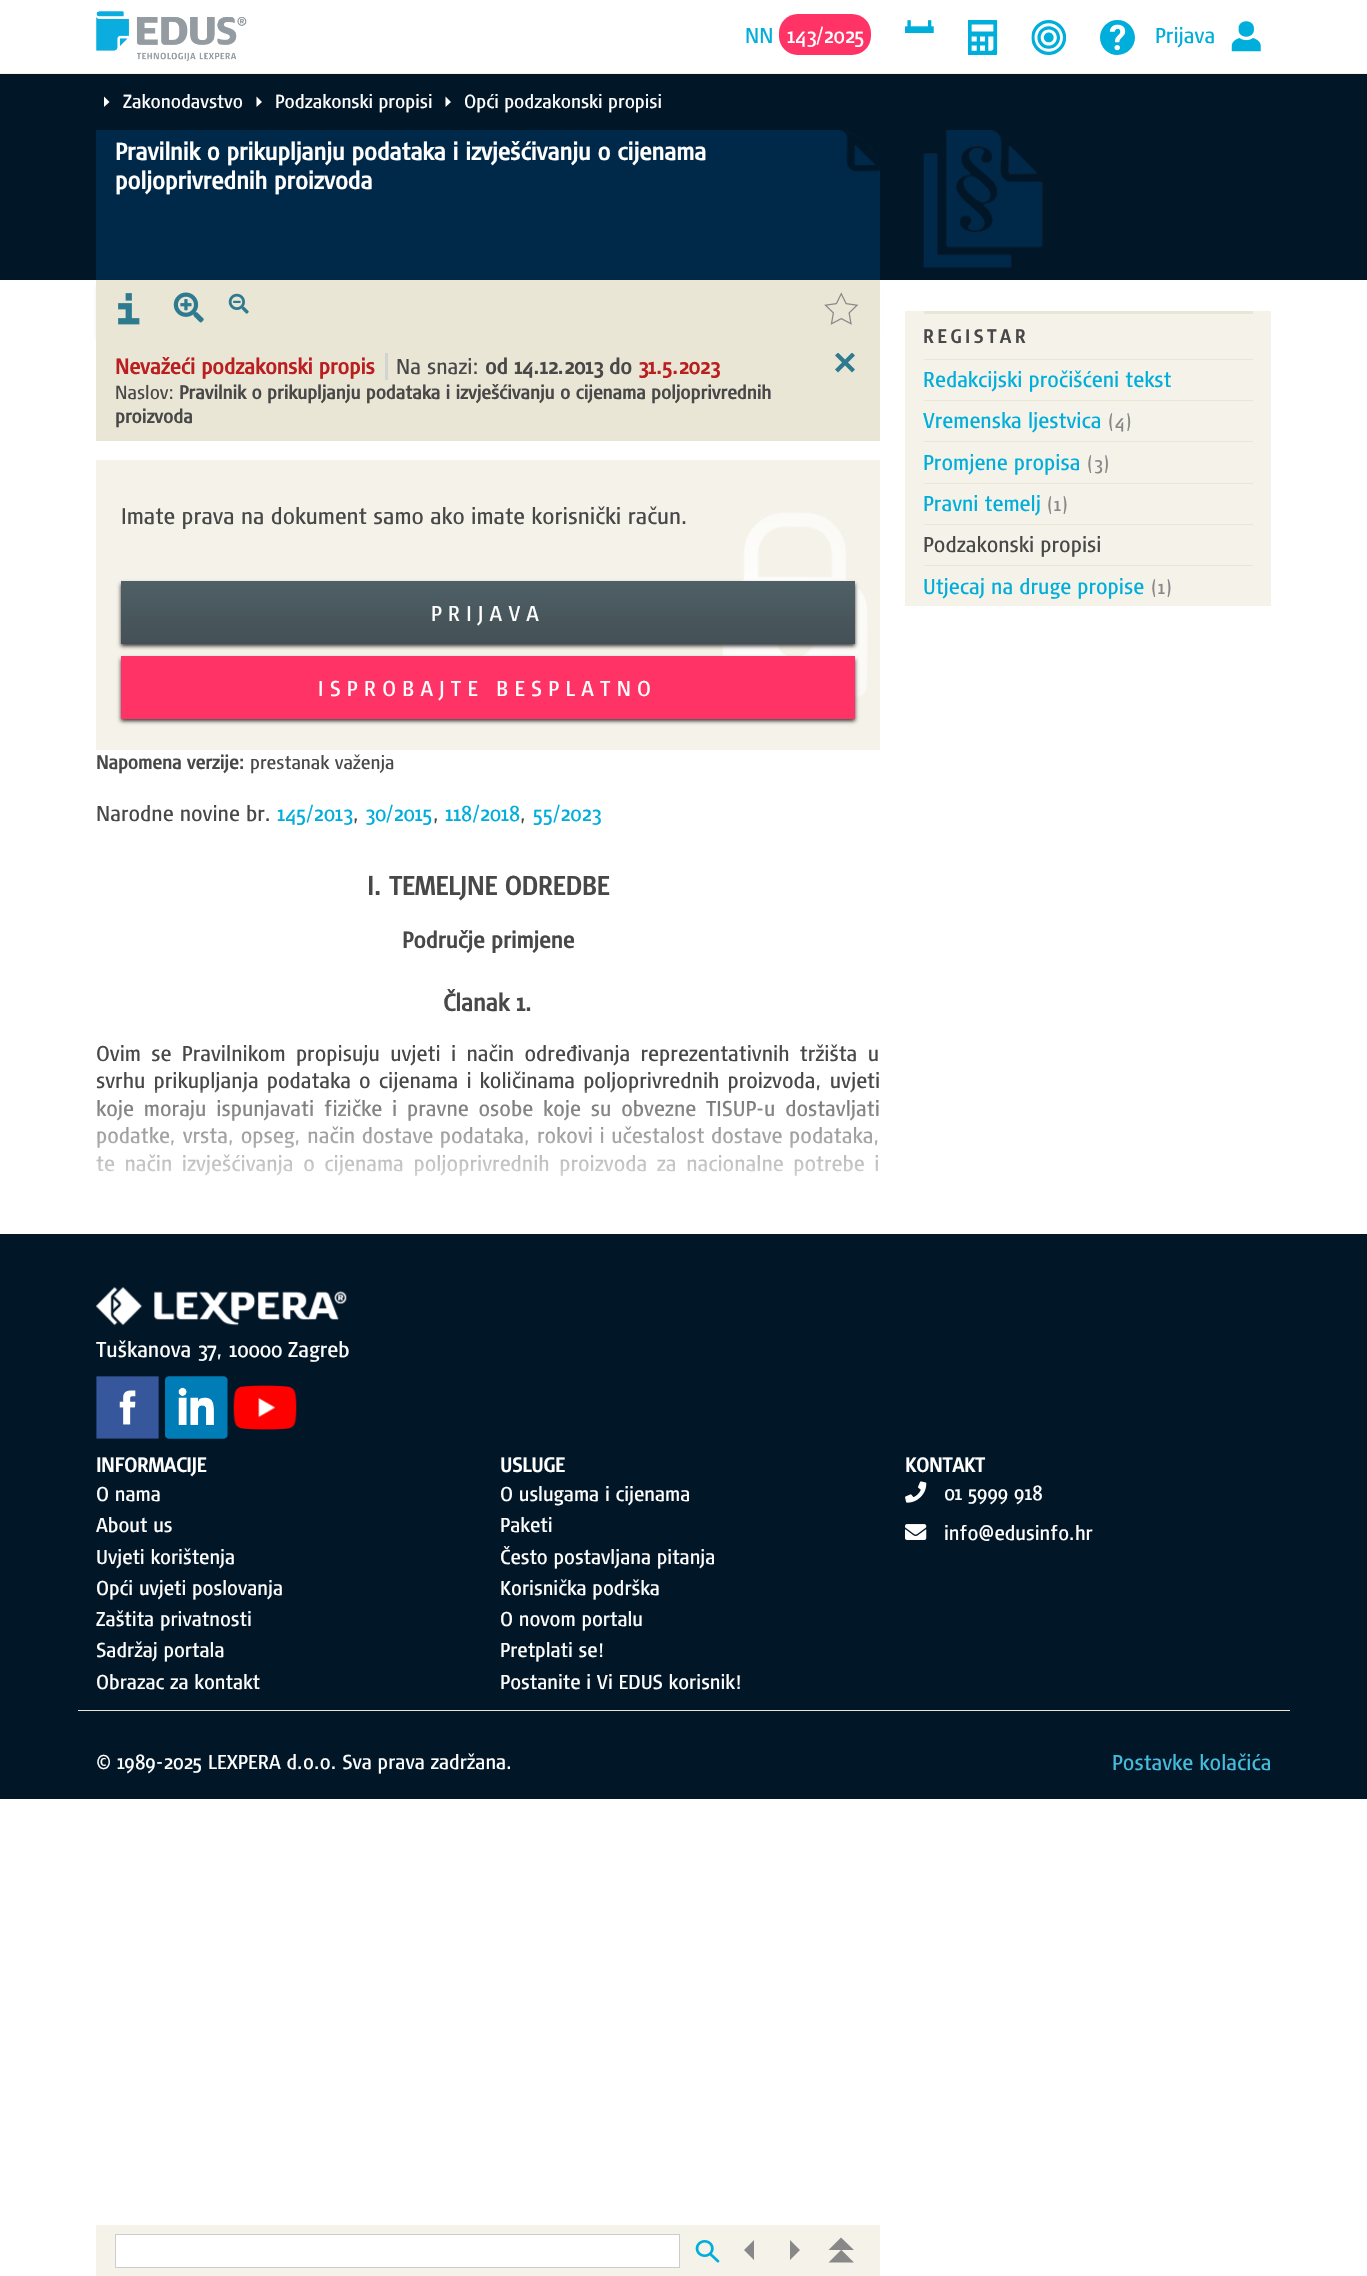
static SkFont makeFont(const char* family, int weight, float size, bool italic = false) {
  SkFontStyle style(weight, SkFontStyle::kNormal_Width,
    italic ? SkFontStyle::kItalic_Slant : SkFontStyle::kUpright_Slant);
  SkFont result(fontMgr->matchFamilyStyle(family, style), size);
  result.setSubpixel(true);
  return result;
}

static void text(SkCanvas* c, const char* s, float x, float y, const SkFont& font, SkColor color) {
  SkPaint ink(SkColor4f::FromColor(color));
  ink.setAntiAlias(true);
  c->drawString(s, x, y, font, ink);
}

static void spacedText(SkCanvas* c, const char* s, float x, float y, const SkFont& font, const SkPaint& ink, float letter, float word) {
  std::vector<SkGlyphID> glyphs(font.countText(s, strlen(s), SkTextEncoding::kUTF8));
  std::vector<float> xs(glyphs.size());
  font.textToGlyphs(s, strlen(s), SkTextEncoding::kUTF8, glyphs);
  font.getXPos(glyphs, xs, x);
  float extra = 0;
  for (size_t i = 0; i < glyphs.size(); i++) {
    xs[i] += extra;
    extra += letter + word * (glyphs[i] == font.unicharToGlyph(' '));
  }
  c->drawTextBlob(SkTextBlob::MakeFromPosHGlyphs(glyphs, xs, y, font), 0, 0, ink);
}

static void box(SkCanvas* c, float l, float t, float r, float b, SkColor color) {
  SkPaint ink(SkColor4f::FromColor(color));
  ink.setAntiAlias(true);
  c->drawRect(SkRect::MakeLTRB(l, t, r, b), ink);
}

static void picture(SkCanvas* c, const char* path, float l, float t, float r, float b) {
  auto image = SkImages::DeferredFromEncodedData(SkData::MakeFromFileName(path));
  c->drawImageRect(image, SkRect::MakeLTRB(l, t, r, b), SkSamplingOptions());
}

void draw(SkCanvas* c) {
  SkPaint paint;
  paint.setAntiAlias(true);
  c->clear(0xffffffff);
  box(c, 0, 73, 1367, 74, 0xfff2f2f2);
  picture(c, "img_01.png", 96, 11, 247, 62);
  SkFont face1 = makeFont("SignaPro", 400, 21.25f);
  text(c, "NN", 745, 43, face1, 0xff00aedb);
  paint.setColor(0xffff3366);
  c->drawPath(SkPathBuilder().moveTo(797.5f, 14).lineTo(816, 14).lineTo(816, 55).lineTo(797.5f, 55).cubicTo(787.5f, 55, 779, 46.5f, 779, 36.5f).lineTo(779, 32.5f).cubicTo(779, 22.5f, 787.5f, 14, 797.5f, 14).close().detach(), paint);
  box(c, 816, 14, 823, 55, 0xffff3366);
  c->drawPath(SkPathBuilder().moveTo(823, 14).lineTo(852, 14).cubicTo(862.5f, 14, 871, 22.5f, 871, 33).lineTo(871, 36).cubicTo(871, 46.5f, 862.5f, 55, 852, 55).lineTo(823, 55).close().detach(), paint);
  text(c, "143/2025", 787, 43, face1, 0xffffffff);
  picture(c, "img_02.png", 905, 20, 934, 34);
  picture(c, "img_03.png", 968, 20, 998, 55);
  picture(c, "img_04.png", 1031, 20, 1066, 55);
  picture(c, "img_05.png", 1100, 20, 1135, 55);
  text(c, "Prijava", 1155, 43, face1, 0xff00aedb);
  picture(c, "img_06.png", 1231, 21, 1261, 52);
  box(c, 0, 74, 1367, 280, 0xff011627);
  paint.setColor(0xffffffff);
  c->drawPath(SkPathBuilder().moveTo(104, 96.5f).lineTo(109.5f, 102).lineTo(104, 107).close().detach(), paint);
  SkFont face2 = makeFont("SignaPro", 400, 18.75f);
  text(c, "Zakonodavstvo", 123, 108, face2, 0xffffffff);
  c->drawPath(SkPathBuilder().moveTo(256.5f, 96.5f).lineTo(262, 102).lineTo(256.5f, 107).close().detach(), paint);
  text(c, "Podzakonski propisi", 275, 108, face2, 0xffffffff);
  c->drawPath(SkPathBuilder().moveTo(445.5f, 96.5f).lineTo(451, 102).lineTo(445.5f, 107).close().detach(), paint);
  text(c, "Opći podzakonski propisi", 464, 108, face2, 0xffffffff);
  paint.setColor(0xff002949);
  c->drawPath(SkPathBuilder().moveTo(96, 130).lineTo(835, 130).cubicTo(860, 130, 880, 150, 880, 175).lineTo(880, 280).lineTo(96, 280).close().detach(), paint);
  picture(c, "img_07.png", 838, 130, 880, 172);
  SkFont face3 = makeFont("SignaPro", 700, 23.75f);
  text(c, "Pravilnik o prikupljanju podataka i izvješćivanju o cijenama", 115, 160, face3, 0xffffffff);
  text(c, "poljoprivrednih proizvoda", 115, 189, face3, 0xffffffff);
  picture(c, "img_08.png", 923, 130, 1043, 268);
  paint.setColor(0xff888888);
  paint.setMaskFilter(SkMaskFilter::MakeBlur(kNormal_SkBlurStyle, 2));
  c->drawRect(SkRect::MakeLTRB(99, 285, 878, 340), paint);
  paint.setMaskFilter(nullptr);
  box(c, 96, 280, 880, 441, 0xffeae6d6);
  picture(c, "img_09.png", 118, 293, 140, 325);
  picture(c, "img_10.png", 173, 292, 204, 323);
  picture(c, "img_11.png", 228, 293, 249, 314);
  picture(c, "img_12.png", 824, 292, 859, 325);
  box(c, 385, 353, 388, 380, 0xffd3d3d3);
  SkFont face4 = makeFont("SignaPro", 700, 21.25f);
  text(c, "Nevažeći podzakonski propis", 115, 374, face4, 0xffba1e1f);
  text(c, "Na snazi:", 396, 374, face1, 0xff484848);
  text(c, "od 14.12.2013 do", 485, 374, face4, 0xff484848);
  text(c, "31.5.2023", 638, 374, face4, 0xffba1e1f);
  text(c, "Naslov:", 115, 399, face2, 0xff484848);
  SkFont face5 = makeFont("SignaPro", 700, 18.75f);
  text(c, "Pravilnik o prikupljanju podataka i izvješćivanju o cijenama poljoprivrednih", 179, 399, face5, 0xff484848);
  text(c, "proizvoda", 115, 423, face5, 0xff484848);
  picture(c, "img_13.png", 835, 353, 855, 373);
  box(c, 96, 2225, 880, 2276, 0xfff4f2e9);
  paint.setColor(0xffffffff);
  c->drawRect(SkRect::MakeLTRB(115.5f, 2234.5f, 679.5f, 2267.5f), paint);
  paint.setStyle(SkPaint::kStroke_Style);
  paint.setStrokeWidth(1);
  paint.setColor(0xffcccccc);
  c->drawRect(SkRect::MakeLTRB(115.5f, 2234.5f, 679.5f, 2267.5f), paint);
  picture(c, "img_14.png", 695, 2240, 720, 2263);
  paint.setStyle(SkPaint::kFill_Style);
  paint.setColor(0xff888888);
  c->drawPath(SkPathBuilder().moveTo(754, 2260).lineTo(744, 2250).lineTo(754, 2240).close().moveTo(790, 2240).lineTo(800, 2250).lineTo(790, 2260).close().detach(), paint);
  c->drawPath(SkPathBuilder().moveTo(828.5f, 2262.5f).lineTo(841, 2250).lineTo(828.5f, 2250).lineTo(841, 2237.5f).lineTo(854, 2250).lineTo(841.5f, 2250).lineTo(854, 2262.5f).close().detach(), paint);
  box(c, 96, 460, 880, 750, 0xfff4f2e9);
  picture(c, "img_15.png", 722, 512, 868, 698);
  SkFont face6 = makeFont("SignaPro", 400, 22.5f);
  text(c, "Imate prava na dokument samo ako imate korisnički račun.", 121, 524, face6, 0xff484848);
  paint.setColor(0xff333333);
  paint.setMaskFilter(SkMaskFilter::MakeBlur(kNormal_SkBlurStyle, 2));
  c->drawRect(SkRect::MakeLTRB(121, 584, 855, 646), paint);
  paint.setMaskFilter(nullptr);
  {
    const SkColor colors[] = {0xff4e6066, 0xff445055};
    const float stops[] = {0, 1};
    const SkPoint ends[] = {{488, 581}, {488, 644}};
    paint.setShader(SkGradientShader::MakeLinear(ends, colors, stops, 2, SkTileMode::kClamp));
    paint.setAlpha(255);
  }
  c->drawRect(SkRect::MakeLTRB(121, 581, 855, 644), paint);
  paint.setShader(nullptr);
  paint.setColor(0xffffffff);
  spacedText(c, "PRIJAVA", 431, 621, face1, paint, 6.25f, 0);
  paint.setColor(0xff333333);
  paint.setMaskFilter(SkMaskFilter::MakeBlur(kNormal_SkBlurStyle, 2));
  c->drawRect(SkRect::MakeLTRB(121, 659, 855, 721), paint);
  paint.setMaskFilter(nullptr);
  box(c, 121, 656, 855, 719, 0xffff3366);
  paint.setColor(0xffffffff);
  spacedText(c, "ISPROBAJTE BESPLATNO", 318, 696, face1, paint, 6.25f, 0);
  text(c, "Napomena verzije:", 96, 769, face5, 0xff484848);
  text(c, "prestanak važenja", 250, 769, face2, 0xff484848);
  text(c, "Narodne novine br.", 96, 821, face1, 0xff484848);
  text(c, "145/2013", 277, 821, face1, 0xff00aedb);
  text(c, ",", 353, 821, face1, 0xff484848);
  text(c, "30/2015", 365, 821, face1, 0xff00aedb);
  text(c, ",", 433, 821, face1, 0xff484848);
  text(c, "118/2018", 445, 821, face1, 0xff00aedb);
  text(c, ",", 520, 821, face1, 0xff484848);
  text(c, "55/2023", 533, 821, face1, 0xff00aedb);
  SkFont face7 = makeFont("SignaPro", 700, 26.25f);
  text(c, "I. TEMELJNE ODREDBE", 367, 895, face7, 0xff484848);
  SkFont face8 = makeFont("SignaPro", 700, 22.5f);
  text(c, "Područje primjene", 402, 948, face8, 0xff484848);
  text(c, "Članak 1.", 443, 1011, face3, 0xff484848);
  paint.setColor(0xff484848);
  spacedText(c, "Ovim se Pravilnikom propisuju uvjeti i način određivanja reprezentativnih tržišta u", 96, 1061, face1, paint, 0, 4.25f);
  spacedText(c, "svrhu prikupljanja podataka o cijenama i količinama poljoprivrednih proizvoda, uvjeti", 96, 1088, face1, paint, 0, 2);
  spacedText(c, "koje moraju ispunjavati fizičke i pravne osobe koje su obvezne TISUP-u dostavljati", 96, 1116, face1, paint, 0, 3.75f);
  spacedText(c, "podatke, vrsta, opseg, način dostave podataka, rokovi i učestalost dostave podataka,", 96, 1143, face1, paint, 0, 0.5f);
  spacedText(c, "te način izvješćivanja o cijenama poljoprivrednih proizvoda za nacionalne potrebe i", 96, 1171, face1, paint, 0, 3.5f);
  box(c, 96, 1090, 878, 1176, 0x1affffff);
  {
    const SkColor colors[] = {0x1affffff, 0xffffffff};
    const float stops[] = {0, 1};
    const SkPoint ends[] = {{488, 1090}, {488, 1215}};
    paint.setShader(SkGradientShader::MakeLinear(ends, colors, stops, 2, SkTileMode::kClamp));
    paint.setAlpha(255);
  }
  c->drawRect(SkRect::MakeLTRB(96, 1090, 879, 1176), paint);
  box(c, 880, 283, 882, 342, 0xffffffff);
  box(c, 905, 311, 1271, 606, 0xfff4f2e9);
  box(c, 924, 311, 1253, 314, 0xffeae6d6);
  paint.setShader(nullptr);
  paint.setColor(0xff484848);
  spacedText(c, "REGISTAR", 923, 343, face5, paint, 3.75f, 0);
  box(c, 924, 359, 1253, 360, 0xffeae6d6);
  text(c, "Redakcijski pročišćeni tekst", 923, 387, face1, 0xff00aedb);
  box(c, 924, 400, 1253, 401, 0xffeae6d6);
  text(c, "Vremenska ljestvica", 923, 428, face1, 0xff00aedb);
  text(c, "(4)", 1108, 428, face2, 0xff888888);
  box(c, 924, 441, 1253, 442, 0xffeae6d6);
  text(c, "Promjene propisa", 923, 470, face1, 0xff00aedb);
  text(c, "(3)", 1087, 470, face2, 0xff888888);
  box(c, 924, 483, 1253, 484, 0xffeae6d6);
  text(c, "Pravni temelj", 923, 511, face1, 0xff00aedb);
  text(c, "(1)", 1047, 511, face2, 0xff888888);
  box(c, 924, 524, 1253, 525, 0xffeae6d6);
  text(c, "Podzakonski propisi", 923, 552, face1, 0xff484848);
  box(c, 924, 565, 1253, 566, 0xffeae6d6);
  text(c, "Utjecaj na druge propise", 923, 594, face1, 0xff00aedb);
  text(c, "(1)", 1151, 594, face2, 0xff888888);
  box(c, 0, 1234, 1367, 1799, 0xff011627);
  box(c, 78, 1710, 1290, 1711, 0xffeae6d6);
  picture(c, "img_16.png", 96, 1287, 347, 1326);
  text(c, "Tuškanova 37, 10000 Zagreb", 96, 1357, face1, 0xffffffff);
  picture(c, "img_17.png", 96, 1376, 159, 1439);
  picture(c, "img_18.png", 165, 1376, 228, 1439);
  picture(c, "img_19.png", 233, 1385, 297, 1430);
  SkFont face9 = makeFont("SignaPro", 700, 20);
  text(c, "INFORMACIJE", 96, 1472, face9, 0xffffffff);
  SkFont face10 = makeFont("SignaPro", 400, 20);
  text(c, "O nama", 96, 1501, face10, 0xffffffff);
  text(c, "About us", 96, 1532, face10, 0xffffffff);
  text(c, "Uvjeti korištenja", 96, 1564, face10, 0xffffffff);
  text(c, "Opći uvjeti poslovanja", 96, 1595, face10, 0xffffffff);
  text(c, "Zaštita privatnosti", 96, 1626, face10, 0xffffffff);
  text(c, "Sadržaj portala", 96, 1657, face10, 0xffffffff);
  text(c, "Obrazac za kontakt", 96, 1689, face10, 0xffffffff);
  text(c, "USLUGE", 500, 1472, face9, 0xffffffff);
  text(c, "O uslugama i cijenama", 500, 1501, face10, 0xffffffff);
  text(c, "Paketi", 500, 1532, face10, 0xffffffff);
  text(c, "Često postavljana pitanja", 500, 1564, face10, 0xffffffff);
  text(c, "Korisnička podrška", 500, 1595, face10, 0xffffffff);
  text(c, "O novom portalu", 500, 1626, face10, 0xffffffff);
  text(c, "Pretplati se!", 500, 1657, face10, 0xffffffff);
  text(c, "Postanite i Vi EDUS korisnik!", 500, 1689, face10, 0xffffffff);
  text(c, "KONTAKT", 905, 1472, face9, 0xffffffff);
  picture(c, "img_20.png", 905, 1481, 927, 1503);
  text(c, "01 5999 918", 944, 1500, face10, 0xffffffff);
  picture(c, "img_21.png", 905, 1524, 927, 1540);
  text(c, "info@edusinfo.hr", 944, 1540, face10, 0xffffffff);
  text(c, "© 1989-2025 LEXPERA d.o.o. Sva prava zadržana.", 96, 1769, face10, 0xffffffff);
  text(c, "Postavke kolačića", 1112, 1770, face1, 0xff46bbdb);
}
